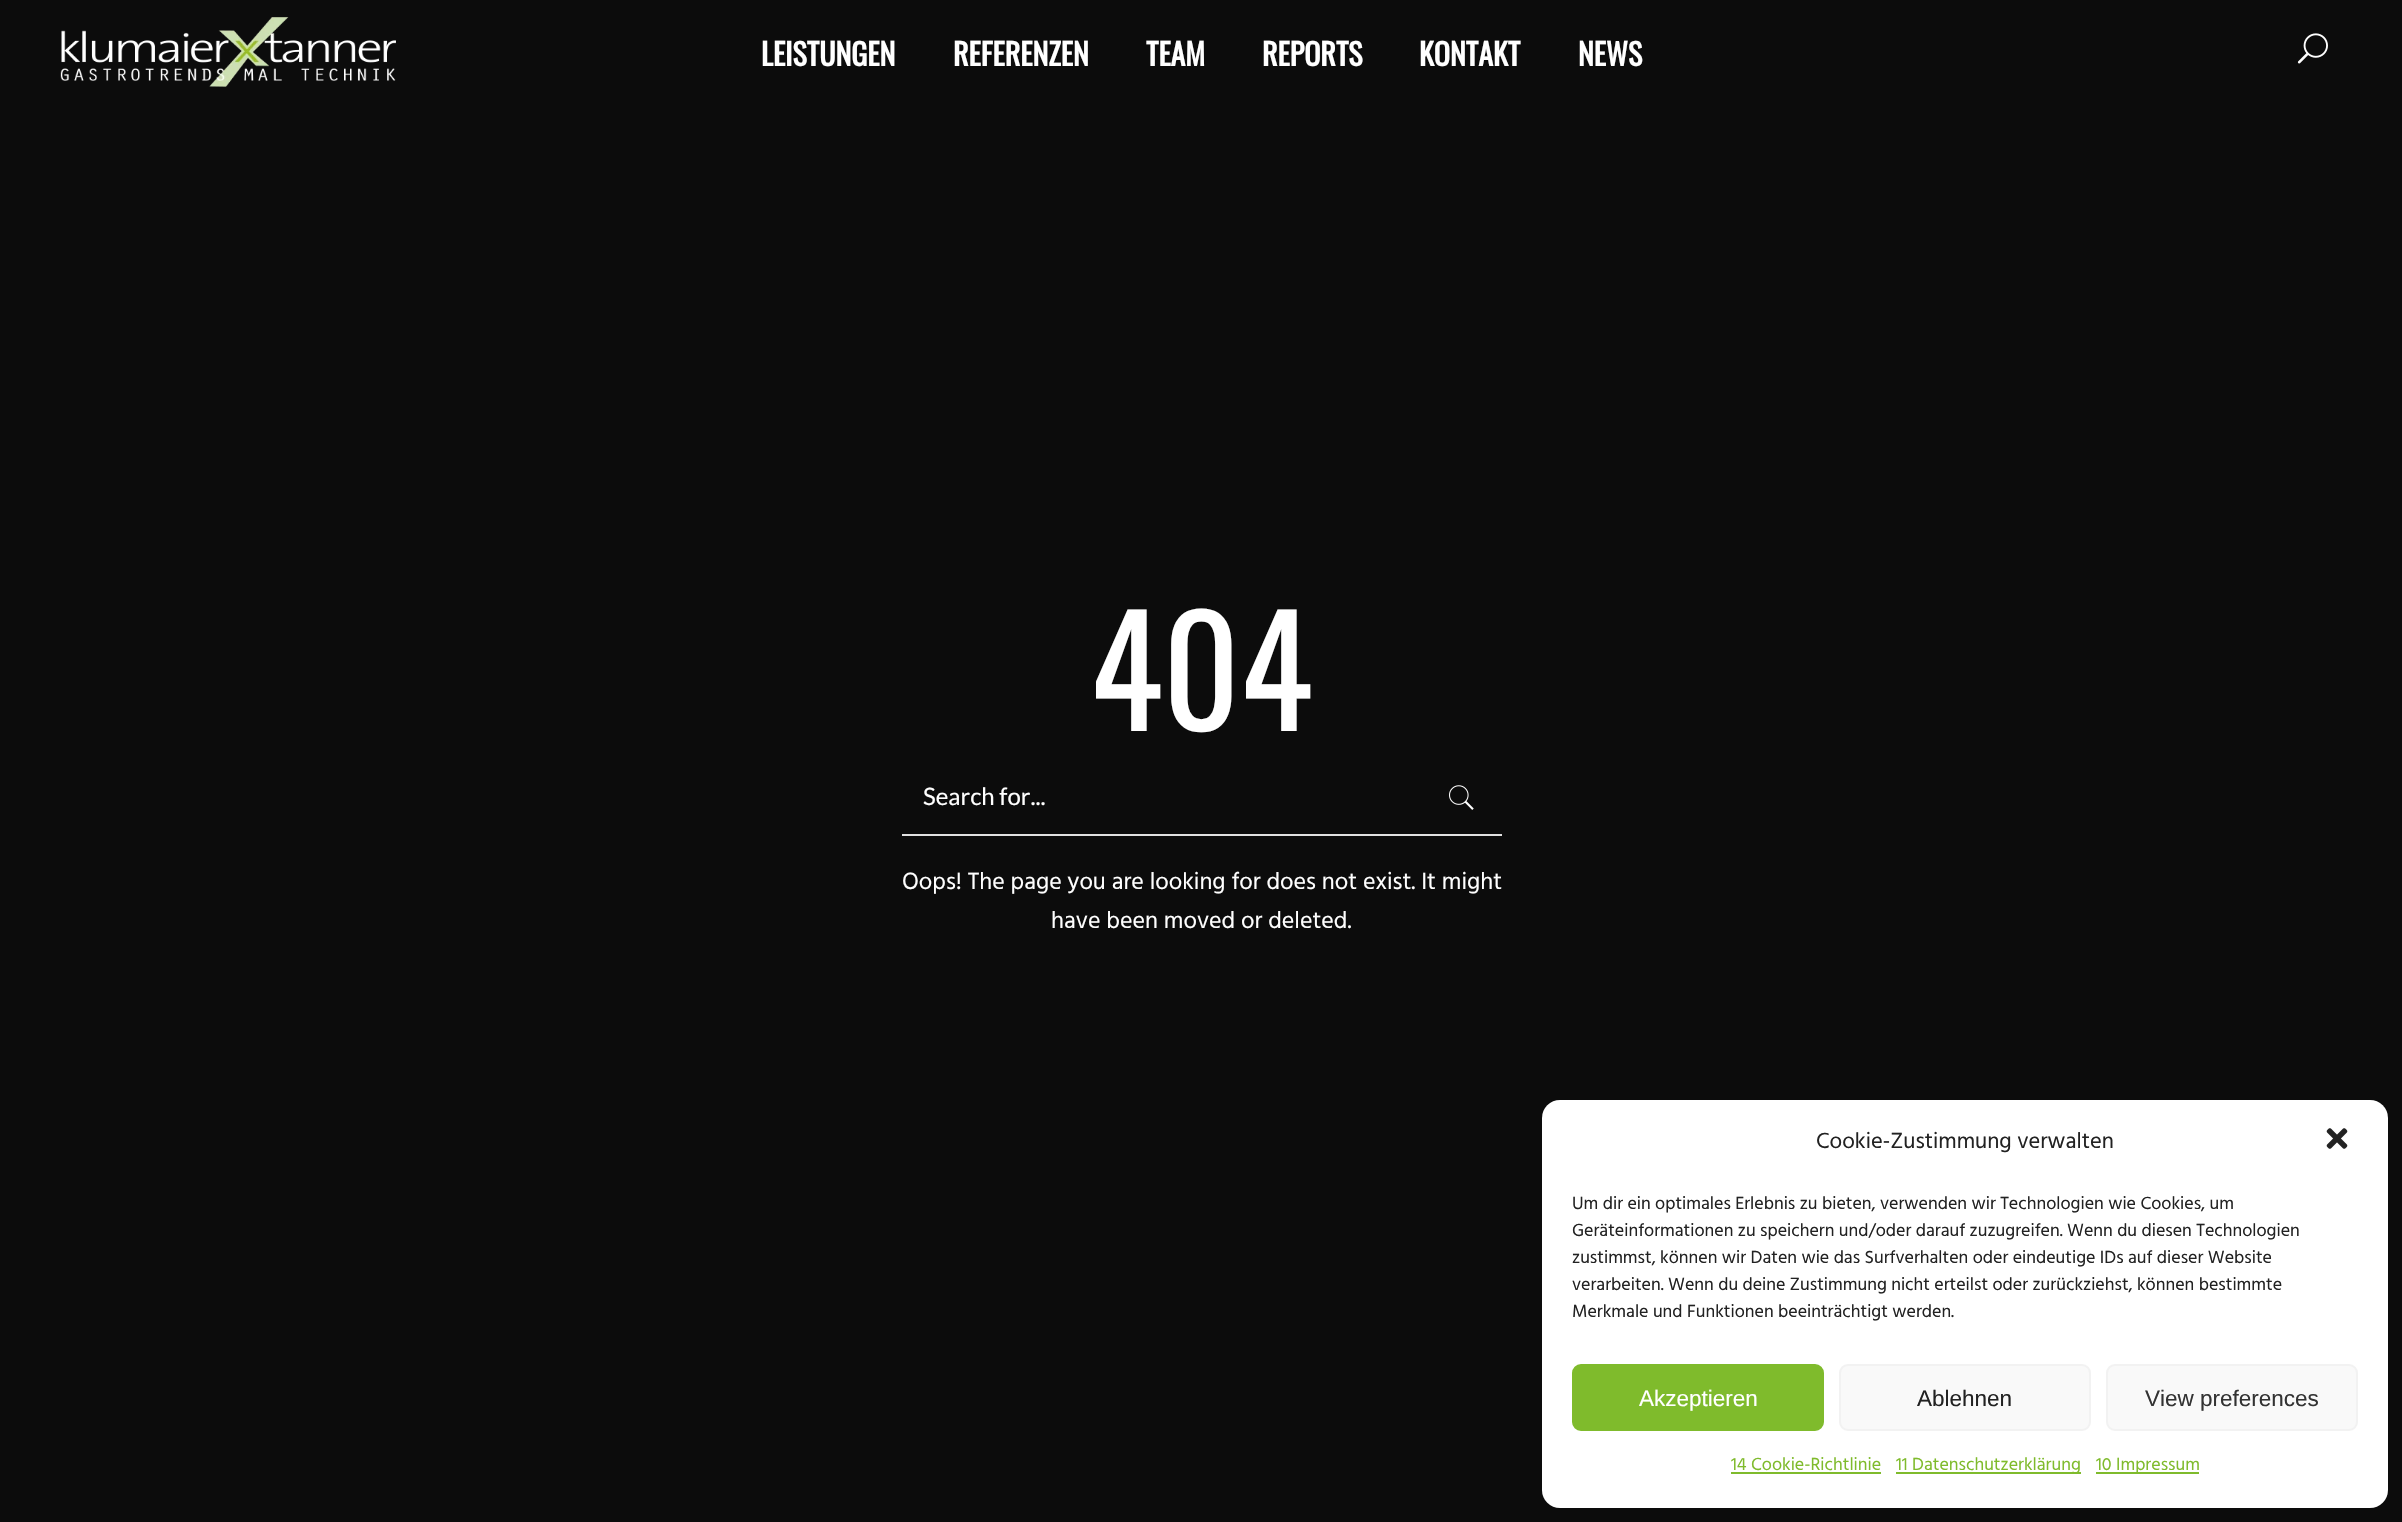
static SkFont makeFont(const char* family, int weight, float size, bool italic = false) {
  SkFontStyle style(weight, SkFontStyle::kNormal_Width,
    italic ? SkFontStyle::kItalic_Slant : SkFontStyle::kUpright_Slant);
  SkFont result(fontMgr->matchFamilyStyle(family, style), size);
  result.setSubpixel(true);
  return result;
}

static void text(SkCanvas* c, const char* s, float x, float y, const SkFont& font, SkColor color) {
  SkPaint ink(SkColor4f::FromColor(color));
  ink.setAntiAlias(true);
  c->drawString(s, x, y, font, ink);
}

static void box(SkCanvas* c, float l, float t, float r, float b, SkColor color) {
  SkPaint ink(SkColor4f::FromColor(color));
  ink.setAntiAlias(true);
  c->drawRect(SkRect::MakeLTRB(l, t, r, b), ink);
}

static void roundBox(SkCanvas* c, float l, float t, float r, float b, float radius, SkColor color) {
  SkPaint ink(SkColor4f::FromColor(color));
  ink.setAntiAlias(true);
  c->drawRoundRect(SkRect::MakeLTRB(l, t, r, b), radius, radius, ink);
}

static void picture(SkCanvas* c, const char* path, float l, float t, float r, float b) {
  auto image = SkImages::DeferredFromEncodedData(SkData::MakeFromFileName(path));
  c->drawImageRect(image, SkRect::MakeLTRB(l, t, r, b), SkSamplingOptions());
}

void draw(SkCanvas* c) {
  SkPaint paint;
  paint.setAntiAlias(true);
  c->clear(0xff0c0c0c);
  picture(c, "img_01.png", 60, 17, 396, 87);
  SkFont face1 = makeFont("Oswald", 700, 30);
  text(c, "LEISTUNGEN", 761, 66, face1, 0xffffffff);
  text(c, "REFERENZEN", 953, 66, face1, 0xffffffff);
  text(c, "TEAM", 1146, 66, face1, 0xffffffff);
  text(c, "REPORTS", 1262, 66, face1, 0xffffffff);
  text(c, "KONTAKT", 1419, 66, face1, 0xffffffff);
  text(c, "NEWS", 1578, 66, face1, 0xffffffff);
  picture(c, "img_02.png", 2297, 33, 2328, 64);
  SkFont face2 = makeFont("Oswald", 400, 150);
  text(c, "404", 1090, 731, face2, 0xffffffff);
  box(c, 902, 834, 1502, 836, 0xffe1e1e1);
  SkFont face3 = makeFont("Lato", 400, 24);
  text(c, "Search for...", 923, 805, face3, 0xffffffff);
  picture(c, "img_03.png", 1449, 785, 1474, 810);
  SkFont face4 = makeFont("Hind", 400, 24);
  text(c, "Oops! The page you are looking for does not exist. It might", 902, 889, face4, 0xffffffff);
  text(c, "have been moved or deleted.", 1051, 928, face4, 0xffffffff);
  roundBox(c, 1542, 1100, 2388, 1508, 18, 0xffffffff);
  SkFont face5 = makeFont("Hind", 400, 22.5f);
  text(c, "Cookie-Zustimmung verwalten", 1816, 1148, face5, 0xff222222);
  picture(c, "img_04.png", 2326, 1128, 2348, 1149);
  SkFont face6 = makeFont("Hind", 400, 18);
  text(c, "Um dir ein optimales Erlebnis zu bieten, verwenden wir Technologien wie Cookies, um", 1572, 1209, face6, 0xff222222);
  text(c, "Geräteinformationen zu speichern und/oder darauf zuzugreifen. Wenn du diesen Technologien", 1572, 1236, face6, 0xff222222);
  text(c, "zustimmst, können wir Daten wie das Surfverhalten oder eindeutige IDs auf dieser Website", 1572, 1263, face6, 0xff222222);
  text(c, "verarbeiten. Wenn du deine Zustimmung nicht erteilst oder zurückziehst, können bestimmte", 1572, 1290, face6, 0xff222222);
  text(c, "Merkmale und Funktionen beeinträchtigt werden.", 1572, 1317, face6, 0xff222222);
  paint.setColor(0xff7fbb2c);
  c->drawRoundRect(SkRect::MakeLTRB(1573, 1365, 1823, 1430), 8, 8, paint);
  paint.setStyle(SkPaint::kStroke_Style);
  paint.setStrokeWidth(2);
  c->drawRoundRect(SkRect::MakeLTRB(1573, 1365, 1823, 1430), 8, 8, paint);
  SkFont face7 = makeFont("Liberation Sans", 400, 22.5f);
  text(c, "Akzeptieren", 1639, 1406, face7, 0xffffffff);
  paint.setStyle(SkPaint::kFill_Style);
  paint.setColor(0xfff9f9f9);
  c->drawRoundRect(SkRect::MakeLTRB(1840, 1365, 2090, 1430), 8, 8, paint);
  paint.setStyle(SkPaint::kStroke_Style);
  paint.setColor(0xfff2f2f2);
  c->drawRoundRect(SkRect::MakeLTRB(1840, 1365, 2090, 1430), 8, 8, paint);
  text(c, "Ablehnen", 1917, 1406, face7, 0xff222222);
  paint.setStyle(SkPaint::kFill_Style);
  paint.setColor(0xfff9f9f9);
  c->drawRoundRect(SkRect::MakeLTRB(2107, 1365, 2357, 1430), 8, 8, paint);
  paint.setStyle(SkPaint::kStroke_Style);
  paint.setColor(0xfff2f2f2);
  c->drawRoundRect(SkRect::MakeLTRB(2107, 1365, 2357, 1430), 8, 8, paint);
  text(c, "View preferences", 2145, 1406, face7, 0xff333333);
  text(c, "14 Cookie-Richtlinie", 1731, 1470, face6, 0xff7fbb2c);
  box(c, 1731, 1472, 1881, 1474, 0xff7fbb2c);
  box(c, 1896, 1472, 2081, 1474, 0xff7fbb2c);
  text(c, "11 Datenschutzerklärung", 1896, 1470, face6, 0xff7fbb2c);
  box(c, 2096, 1472, 2199, 1474, 0xff7fbb2c);
  text(c, "10 Impressum", 2096, 1470, face6, 0xff7fbb2c);
}
